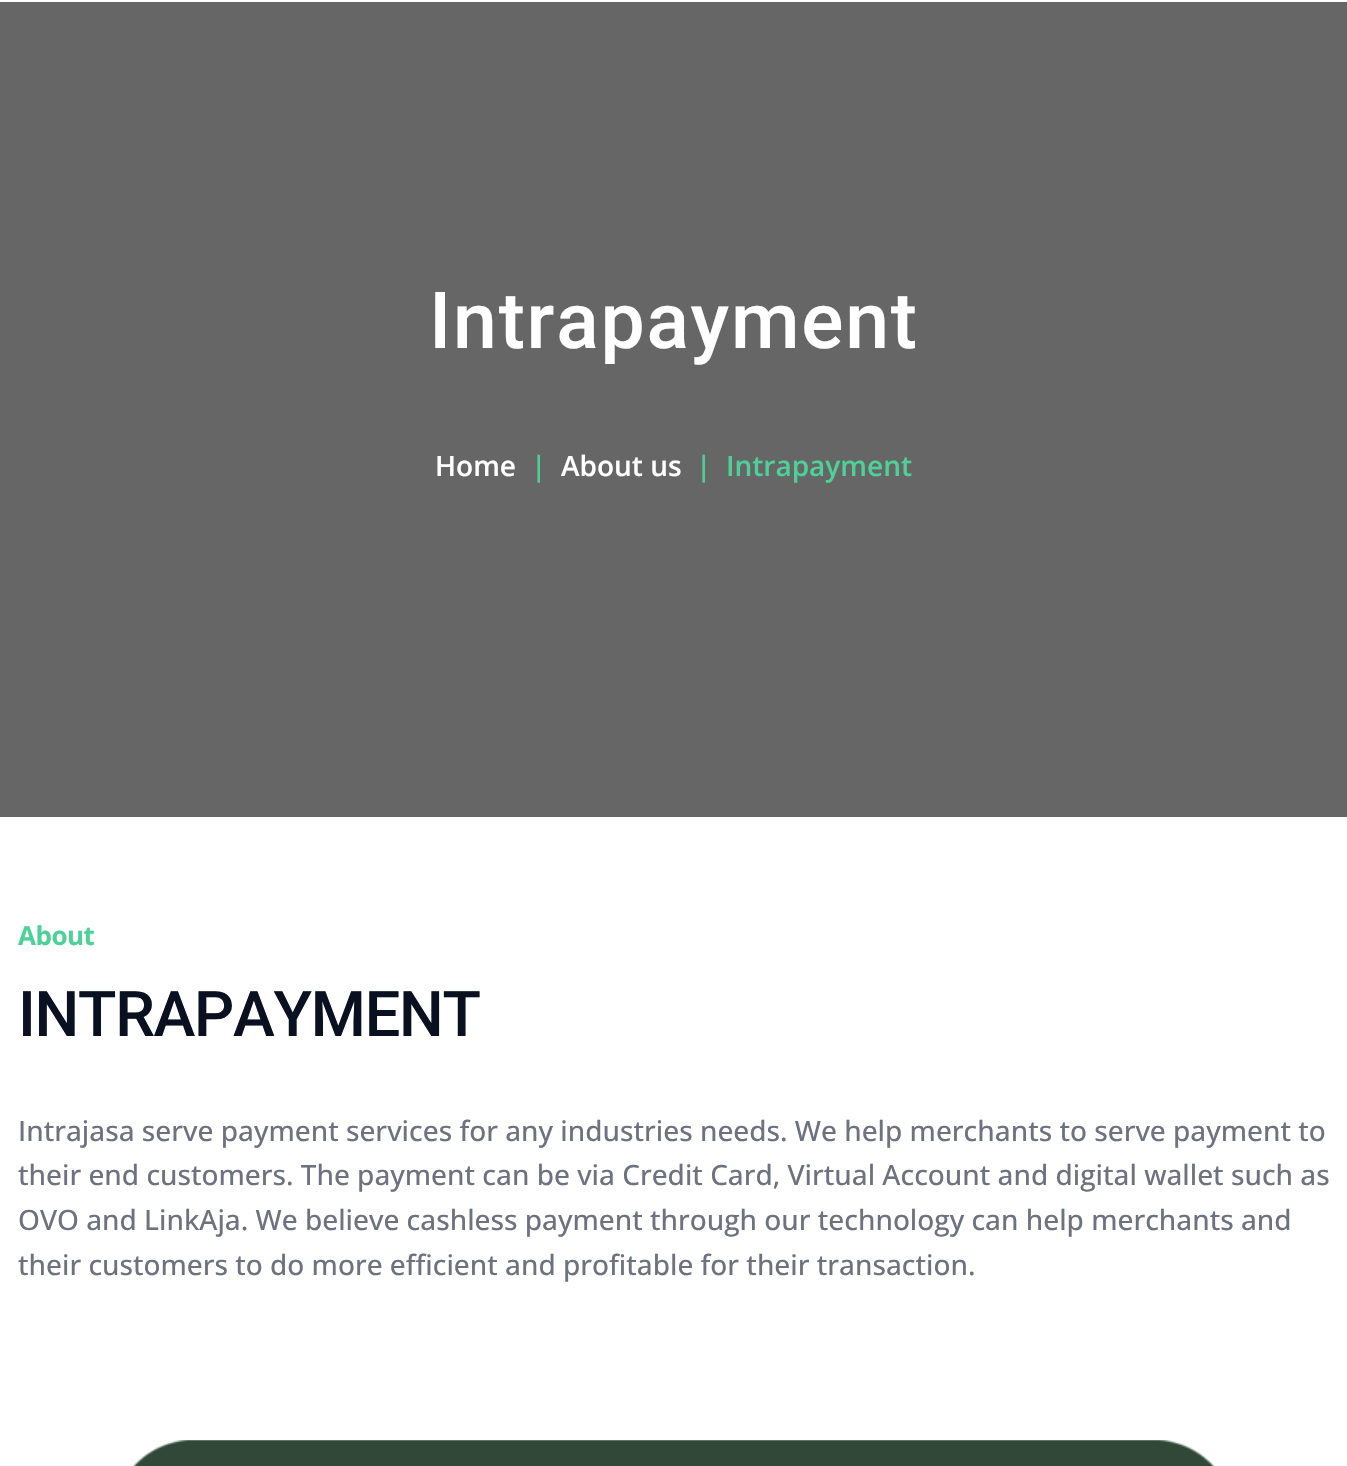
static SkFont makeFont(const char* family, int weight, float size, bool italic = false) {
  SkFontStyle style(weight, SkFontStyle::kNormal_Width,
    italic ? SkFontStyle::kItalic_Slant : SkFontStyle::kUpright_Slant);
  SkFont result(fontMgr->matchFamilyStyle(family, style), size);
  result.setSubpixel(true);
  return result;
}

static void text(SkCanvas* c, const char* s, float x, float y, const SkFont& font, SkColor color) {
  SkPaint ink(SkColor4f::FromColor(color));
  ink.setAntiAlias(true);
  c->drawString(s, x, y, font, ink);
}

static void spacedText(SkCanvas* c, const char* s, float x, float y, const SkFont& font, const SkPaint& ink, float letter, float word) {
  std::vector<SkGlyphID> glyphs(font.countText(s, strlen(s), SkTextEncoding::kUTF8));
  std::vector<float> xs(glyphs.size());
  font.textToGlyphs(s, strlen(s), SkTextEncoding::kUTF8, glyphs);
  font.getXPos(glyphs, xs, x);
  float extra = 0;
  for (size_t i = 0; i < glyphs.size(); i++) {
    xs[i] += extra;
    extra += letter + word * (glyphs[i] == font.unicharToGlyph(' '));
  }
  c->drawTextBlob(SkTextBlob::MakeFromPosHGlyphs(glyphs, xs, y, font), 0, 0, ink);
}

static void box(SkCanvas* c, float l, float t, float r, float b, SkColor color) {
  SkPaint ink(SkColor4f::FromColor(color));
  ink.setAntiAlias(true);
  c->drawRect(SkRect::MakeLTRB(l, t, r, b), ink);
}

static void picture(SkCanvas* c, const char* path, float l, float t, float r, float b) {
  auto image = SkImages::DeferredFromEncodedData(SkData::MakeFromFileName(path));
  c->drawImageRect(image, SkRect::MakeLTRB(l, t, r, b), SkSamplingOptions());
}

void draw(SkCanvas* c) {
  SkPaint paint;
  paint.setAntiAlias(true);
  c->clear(0xffffffff);
  box(c, 0, 2, 1347, 817, 0xff666666);
  SkFont face1 = makeFont("Roboto", 500, 78.75f);
  paint.setColor(0xffffffff);
  spacedText(c, "Intrapayment", 429, 348, face1, paint, 1.75f, 0);
  SkFont face2 = makeFont("Open Sans", 600, 28);
  text(c, "Home", 435, 476, face2, 0xffffffff);
  text(c, "|", 531, 476, face2, 0xff4ed198);
  text(c, "About us", 561, 476, face2, 0xffffffff);
  text(c, "|  Intrapayment", 696, 476, face2, 0xff4ed198);
  SkFont face3 = makeFont("Open Sans", 700, 26);
  paint.setColor(0xff4ed198);
  spacedText(c, "About", 18, 945, face3, paint, -0.5f, 0);
  SkFont face4 = makeFont("Roboto", 500, 63);
  paint.setColor(0xff09101f);
  spacedText(c, "INTRAPAYMENT", 18, 1036, face4, paint, -1.25f, 0);
  SkFont face5 = makeFont("Open Sans", 500, 28);
  text(c, "Intrajasa serve payment services for any industries needs. We help merchants to serve payment to", 18, 1141, face5, 0xff6e727f);
  text(c, "their end customers. The payment can be via Credit Card, Virtual Account and digital wallet such as", 18, 1185, face5, 0xff6e727f);
  text(c, "OVO and LinkAja. We believe cashless payment through our technology can help merchants and", 18, 1230, face5, 0xff6e727f);
  text(c, "their customers to do more efficient and profitable for their transaction.", 18, 1275, face5, 0xff6e727f);
  picture(c, "img_01.png", 132, 1440, 1215, 1466);
}
